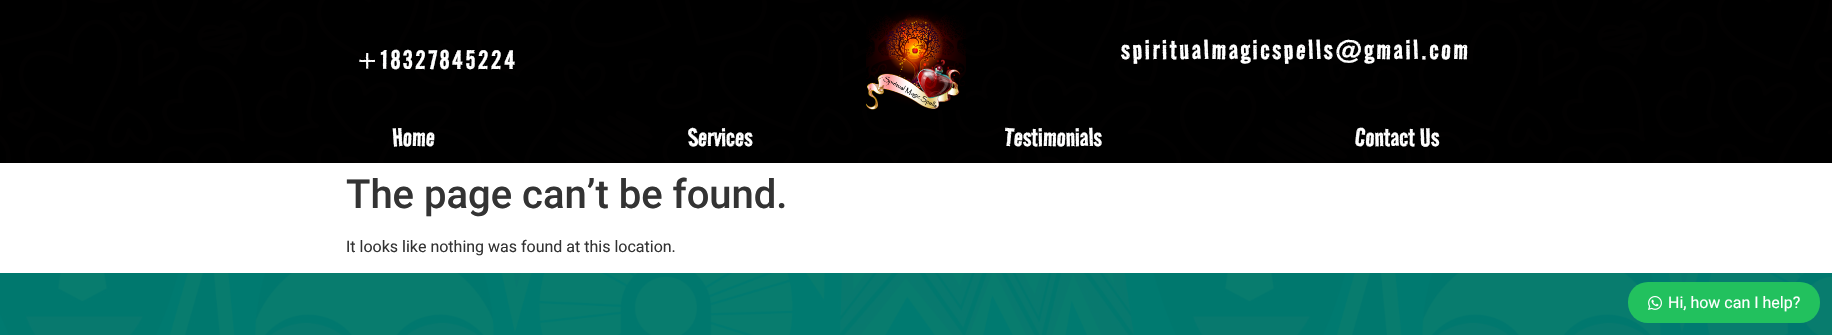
static SkFont makeFont(const char* family, int weight, float size, bool italic = false) {
  SkFontStyle style(weight, SkFontStyle::kNormal_Width,
    italic ? SkFontStyle::kItalic_Slant : SkFontStyle::kUpright_Slant);
  SkFont result(fontMgr->matchFamilyStyle(family, style), size);
  result.setSubpixel(true);
  return result;
}

static void text(SkCanvas* c, const char* s, float x, float y, const SkFont& font, SkColor color) {
  SkPaint ink(SkColor4f::FromColor(color));
  ink.setAntiAlias(true);
  c->drawString(s, x, y, font, ink);
}

static void spacedText(SkCanvas* c, const char* s, float x, float y, const SkFont& font, const SkPaint& ink, float letter, float word) {
  std::vector<SkGlyphID> glyphs(font.countText(s, strlen(s), SkTextEncoding::kUTF8));
  std::vector<float> xs(glyphs.size());
  font.textToGlyphs(s, strlen(s), SkTextEncoding::kUTF8, glyphs);
  font.getXPos(glyphs, xs, x);
  float extra = 0;
  for (size_t i = 0; i < glyphs.size(); i++) {
    xs[i] += extra;
    extra += letter + word * (glyphs[i] == font.unicharToGlyph(' '));
  }
  c->drawTextBlob(SkTextBlob::MakeFromPosHGlyphs(glyphs, xs, y, font), 0, 0, ink);
}

static void box(SkCanvas* c, float l, float t, float r, float b, SkColor color) {
  SkPaint ink(SkColor4f::FromColor(color));
  ink.setAntiAlias(true);
  c->drawRect(SkRect::MakeLTRB(l, t, r, b), ink);
}

static void roundBox(SkCanvas* c, float l, float t, float r, float b, float radius, SkColor color) {
  SkPaint ink(SkColor4f::FromColor(color));
  ink.setAntiAlias(true);
  c->drawRoundRect(SkRect::MakeLTRB(l, t, r, b), radius, radius, ink);
}

static void picture(SkCanvas* c, const char* path, float l, float t, float r, float b) {
  auto image = SkImages::DeferredFromEncodedData(SkData::MakeFromFileName(path));
  c->drawImageRect(image, SkRect::MakeLTRB(l, t, r, b), SkSamplingOptions());
}

void draw(SkCanvas* c) {
  SkPaint paint;
  paint.setAntiAlias(true);
  c->clear(0xffffffff);
  box(c, 0, 0, 1832, 163, 0xff000000);
  picture(c, "img_01.png", 0, 0, 1832, 163);
  SkFont face1 = makeFont("Road Rage", 400, 32);
  paint.setColor(0xffffffff);
  spacedText(c, "+18327845224", 356, 69, face1, paint, 2.5f, 0);
  picture(c, "img_02.png", 866, 10, 966, 110);
  spacedText(c, "spiritualmagicspells@gmail.com", 1121, 59, face1, paint, 2.5f, 0);
  SkFont face2 = makeFont("Road Rage", 400, 30);
  text(c, "Home", 392, 146, face2, 0xffffffff);
  text(c, "Services", 688, 146, face2, 0xffffffff);
  text(c, "Testimonials", 1005, 146, face2, 0xffffffff);
  text(c, "Contact Us", 1355, 146, face2, 0xffffffff);
  SkFont face3 = makeFont("Roboto", 500, 40);
  text(c, "The page can’t be found.", 346, 208, face3, 0xff333333);
  SkFont face4 = makeFont("Roboto", 400, 16);
  text(c, "It looks like nothing was found at this location.", 346, 252, face4, 0xff333333);
  picture(c, "img_03.png", 0, 273, 1832, 335);
  roundBox(c, 1628, 282, 1820, 323, 20, 0xff22c15e);
  picture(c, "img_04.png", 1648, 296, 1662, 310);
  text(c, "Hi, how can I help?", 1668, 308, face4, 0xffffffff);
}
